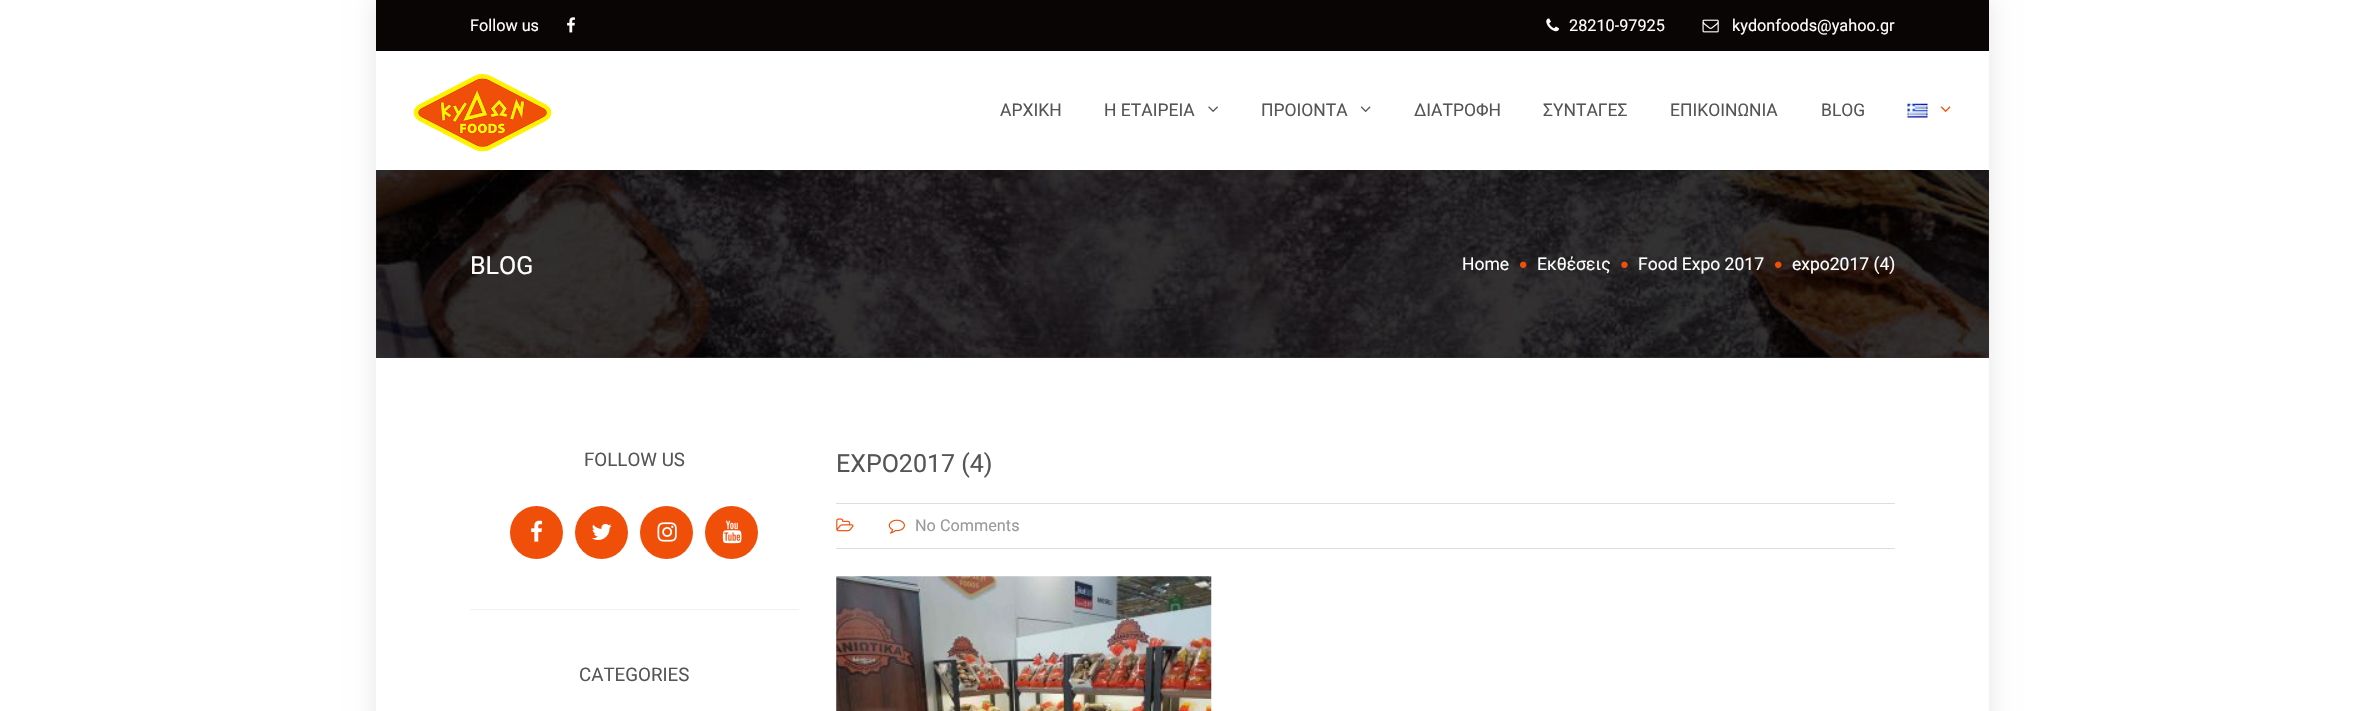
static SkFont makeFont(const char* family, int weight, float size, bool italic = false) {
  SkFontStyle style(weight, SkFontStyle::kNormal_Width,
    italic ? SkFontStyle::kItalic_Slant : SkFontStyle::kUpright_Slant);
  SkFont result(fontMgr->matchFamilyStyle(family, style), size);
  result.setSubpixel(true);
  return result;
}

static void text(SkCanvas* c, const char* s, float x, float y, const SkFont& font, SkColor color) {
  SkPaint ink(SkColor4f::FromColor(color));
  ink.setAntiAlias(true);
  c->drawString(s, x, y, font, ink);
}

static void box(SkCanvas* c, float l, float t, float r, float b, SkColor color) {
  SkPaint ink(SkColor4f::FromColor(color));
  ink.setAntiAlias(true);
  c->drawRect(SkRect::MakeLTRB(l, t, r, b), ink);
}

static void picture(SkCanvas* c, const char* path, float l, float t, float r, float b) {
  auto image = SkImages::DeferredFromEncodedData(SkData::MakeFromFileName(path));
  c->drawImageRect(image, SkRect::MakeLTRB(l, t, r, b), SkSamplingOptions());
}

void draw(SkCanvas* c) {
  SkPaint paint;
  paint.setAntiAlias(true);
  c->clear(0xffffffff);
  paint.setColor(0x1a020202);
  paint.setMaskFilter(SkMaskFilter::MakeBlur(kNormal_SkBlurStyle, 12));
  c->drawRect(SkRect::MakeLTRB(376, 0, 1989, 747), paint);
  paint.setMaskFilter(nullptr);
  box(c, 376, 51, 1989, 711, 0xffffffff);
  box(c, 376, 0, 1989, 51, 0xff0a0505);
  SkFont face1 = makeFont("Roboto", 400, 16.25f);
  text(c, "Follow us", 470, 31, face1, 0xffffffff);
  picture(c, "img_01.png", 567, 17, 575, 33);
  picture(c, "img_02.png", 1546, 18, 1559, 32);
  text(c, "28210-97925", 1569, 31, face1, 0xffffffff);
  picture(c, "img_03.png", 1702, 19, 1719, 33);
  text(c, "kydonfoods@yahoo.gr", 1732, 31, face1, 0xffffffff);
  picture(c, "img_04.png", 413, 74, 552, 152);
  SkFont face2 = makeFont("Roboto", 400, 17.5f);
  text(c, "ΑΡΧΙΚΗ", 1000, 116, face2, 0xff555555);
  text(c, "Η ΕΤΑΙΡΕΙΑ", 1104, 116, face2, 0xff555555);
  picture(c, "img_05.png", 1208, 106, 1218, 112);
  text(c, "ΠΡΟΙΟΝΤΑ", 1261, 116, face2, 0xff555555);
  picture(c, "img_06.png", 1360, 106, 1371, 112);
  text(c, "ΔΙΑΤΡΟΦΗ", 1414, 116, face2, 0xff555555);
  text(c, "ΣΥΝΤΑΓΕΣ", 1543, 116, face2, 0xff555555);
  text(c, "ΕΠΙΚΟΙΝΩΝΙΑ", 1670, 116, face2, 0xff555555);
  text(c, "BLOG", 1821, 116, face2, 0xff555555);
  picture(c, "img_07.png", 1907, 103, 1928, 118);
  picture(c, "img_08.png", 1940, 106, 1951, 112);
  box(c, 376, 170, 1989, 358, 0xfff5f5f5);
  picture(c, "img_09.png", 376, 170, 1989, 358);
  box(c, 376, 170, 1989, 358, 0xcc000000);
  SkFont face3 = makeFont("Roboto", 400, 25);
  text(c, "BLOG", 470, 274, face3, 0xffffffff);
  text(c, "Home", 1462, 270, face2, 0xffffffff);
  picture(c, "img_10.png", 1520, 261, 1527, 268);
  text(c, "Εκθέσεις", 1537, 270, face2, 0xffffffff);
  picture(c, "img_11.png", 1621, 261, 1628, 268);
  text(c, "Food Expo 2017", 1638, 270, face2, 0xffffffff);
  picture(c, "img_12.png", 1775, 261, 1782, 268);
  text(c, "expo2017 (4)", 1792, 270, face2, 0xffffffff);
  box(c, 470, 609, 799, 610, 0xfff1f1f1);
  SkFont face4 = makeFont("Roboto", 400, 18.75f);
  text(c, "FOLLOW US", 584, 466, face4, 0xff555555);
  paint.setColor(0xfff04f0a);
  c->drawCircle(536.5f, 532.5f, 26.5f, paint);
  picture(c, "img_13.png", 531, 520, 543, 542);
  c->drawCircle(601.5f, 532.5f, 26.5f, paint);
  picture(c, "img_14.png", 592, 523, 612, 540);
  c->drawCircle(666.5f, 532.5f, 26.5f, paint);
  picture(c, "img_15.png", 657, 522, 677, 542);
  c->drawCircle(731.5f, 532.5f, 26.5f, paint);
  picture(c, "img_16.png", 722, 520, 742, 544);
  text(c, "CATEGORIES", 579, 681, face4, 0xff555555);
  text(c, "EXPO2017 (4)", 836, 472, face3, 0xff555555);
  box(c, 836, 503, 1895, 504, 0xffdddddd);
  box(c, 836, 548, 1895, 549, 0xffdddddd);
  picture(c, "img_17.png", 836, 518, 854, 532);
  picture(c, "img_18.png", 888, 519, 905, 534);
  text(c, "No Comments", 915, 531, face1, 0xff999999);
  picture(c, "img_19.png", 836, 576, 1212, 711);
}
